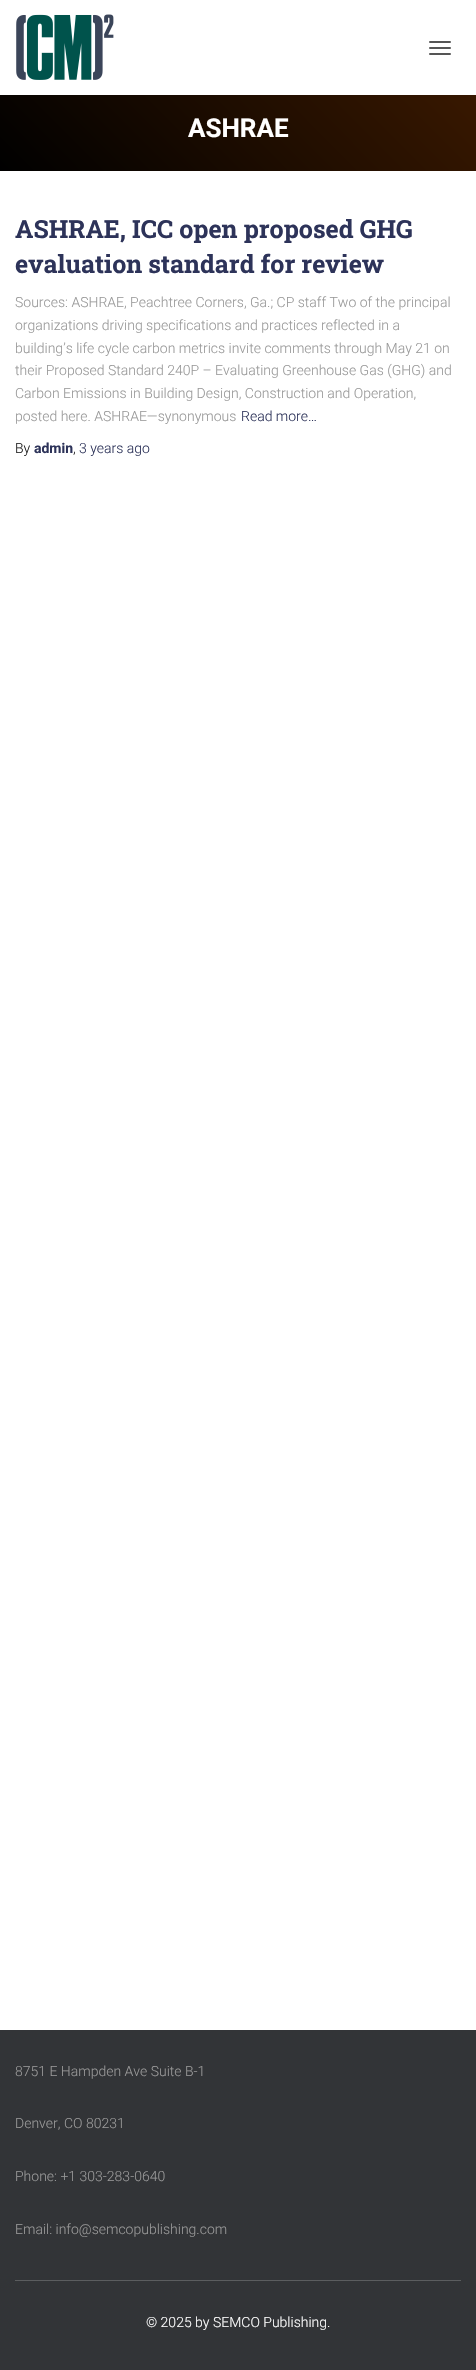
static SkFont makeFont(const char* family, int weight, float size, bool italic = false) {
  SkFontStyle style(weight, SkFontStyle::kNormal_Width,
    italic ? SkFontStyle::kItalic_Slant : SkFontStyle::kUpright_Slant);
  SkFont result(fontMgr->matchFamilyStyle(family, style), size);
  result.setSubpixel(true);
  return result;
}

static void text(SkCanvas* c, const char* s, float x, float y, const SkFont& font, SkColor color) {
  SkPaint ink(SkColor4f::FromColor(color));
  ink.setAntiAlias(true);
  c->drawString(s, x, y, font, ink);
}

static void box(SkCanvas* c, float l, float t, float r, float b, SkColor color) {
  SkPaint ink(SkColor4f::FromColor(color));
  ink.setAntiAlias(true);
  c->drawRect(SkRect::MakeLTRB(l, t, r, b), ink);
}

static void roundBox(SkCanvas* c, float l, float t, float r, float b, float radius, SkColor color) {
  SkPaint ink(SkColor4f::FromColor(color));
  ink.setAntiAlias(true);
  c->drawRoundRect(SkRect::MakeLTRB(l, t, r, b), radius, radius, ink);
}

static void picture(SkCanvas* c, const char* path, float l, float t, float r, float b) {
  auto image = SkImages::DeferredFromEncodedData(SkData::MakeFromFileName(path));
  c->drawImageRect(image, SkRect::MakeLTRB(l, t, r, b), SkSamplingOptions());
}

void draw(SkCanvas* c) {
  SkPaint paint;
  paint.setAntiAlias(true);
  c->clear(0xff323437);
  {
    const SkColor colors[] = {0xff000000, 0xff421c00};
    const float stops[] = {0, 1};
    const SkPoint ends[] = {{76, 247}, {400, -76}};
    paint.setShader(SkGradientShader::MakeLinear(ends, colors, stops, 2, SkTileMode::kClamp));
    paint.setAlpha(255);
  }
  c->drawRect(SkRect::MakeLTRB(0, 95, 476, 171), paint);
  paint.setShader(nullptr);
  paint.setColor(0x6b000000);
  paint.setMaskFilter(SkMaskFilter::MakeBlur(kNormal_SkBlurStyle, 5));
  c->drawRect(SkRect::MakeLTRB(6, 7, 470, 90), paint);
  paint.setMaskFilter(nullptr);
  box(c, 0, 0, 476, 95, 0xffffffff);
  picture(c, "img_01.png", 16, 14, 114, 80);
  roundBox(c, 429, 41, 451, 43, 1, 0xff555555);
  roundBox(c, 429, 47, 451, 49, 1, 0xff555555);
  roundBox(c, 429, 53, 451, 55, 1, 0xff555555);
  SkFont face1 = makeFont("Roboto", 700, 26);
  text(c, "ASHRAE", 188, 137, face1, 0xffffffff);
  box(c, 0, 171, 476, 2030, 0xffffffff);
  SkFont face2 = makeFont("Roboto Slab", 700, 25);
  text(c, "ASHRAE, ICC open proposed GHG", 15, 238, face2, 0xff2d3359);
  text(c, "evaluation standard for review", 15, 273, face2, 0xff2d3359);
  SkFont face3 = makeFont("Roboto", 300, 14);
  text(c, "Sources: ASHRAE, Peachtree Corners, Ga.; CP staff Two of the principal", 15, 307, face3, 0xff999999);
  text(c, "organizations driving specifications and practices reflected in a", 15, 330, face3, 0xff999999);
  text(c, "building’s life cycle carbon metrics invite comments through May 21 on", 15, 353, face3, 0xff999999);
  text(c, "their Proposed Standard 240P – Evaluating Greenhouse Gas (GHG) and", 15, 375, face3, 0xff999999);
  text(c, "Carbon Emissions in Building Design, Construction and Operation,", 15, 398, face3, 0xff999999);
  text(c, "posted here. ASHRAE—synonymous", 15, 421, face3, 0xff999999);
  text(c, "Read more…", 241, 421, face3, 0xff2d3359);
  text(c, "By", 15, 453, face3, 0xff212121);
  SkFont face4 = makeFont("Roboto", 700, 14);
  text(c, "admin", 34, 453, face4, 0xff2d3359);
  text(c, ",", 73, 453, face3, 0xff212121);
  text(c, "3 years ago", 79, 453, face3, 0xff2d3359);
  text(c, "8751 E Hampden Ave Suite B-1", 15, 2076, face3, 0xff999999);
  text(c, "Denver, CO 80231", 15, 2128, face3, 0xff999999);
  text(c, "Phone: +1 303-283-0640", 15, 2181, face3, 0xff999999);
  text(c, "Email: info@semcopublishing.com", 15, 2234, face3, 0xff999999);
  box(c, 15, 2280, 461, 2281, 0xff5b5d5f);
  text(c, "© 2025 by SEMCO Publishing.", 146, 2327, face3, 0xffffffff);
}
